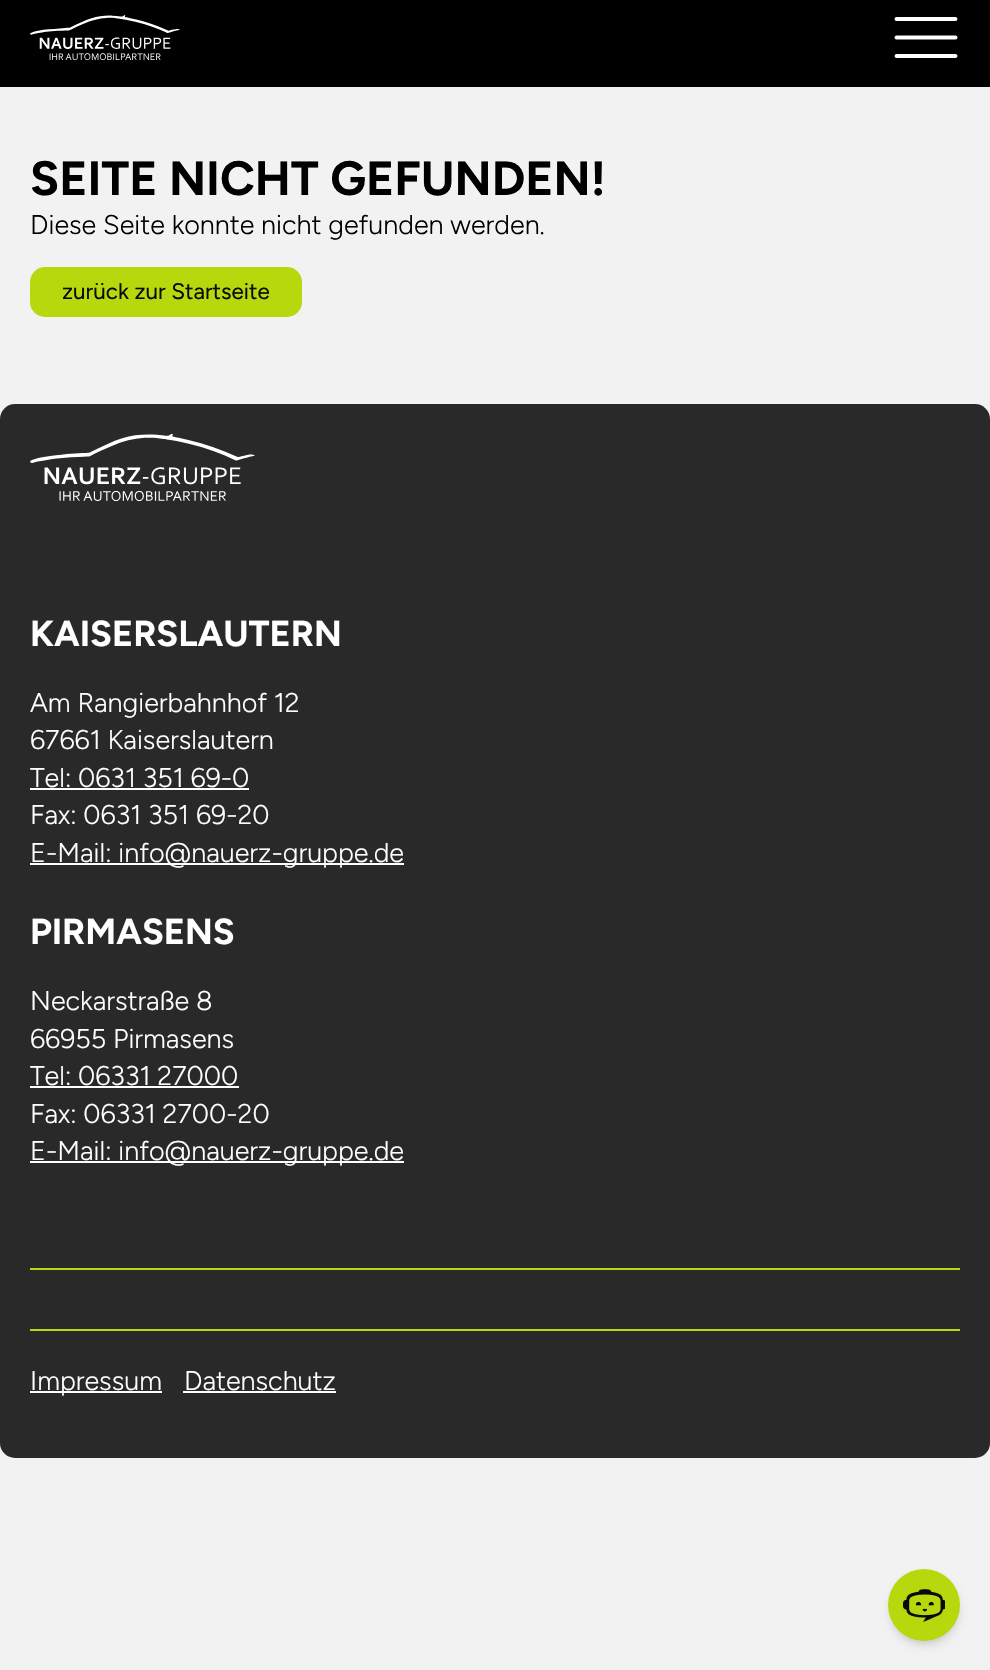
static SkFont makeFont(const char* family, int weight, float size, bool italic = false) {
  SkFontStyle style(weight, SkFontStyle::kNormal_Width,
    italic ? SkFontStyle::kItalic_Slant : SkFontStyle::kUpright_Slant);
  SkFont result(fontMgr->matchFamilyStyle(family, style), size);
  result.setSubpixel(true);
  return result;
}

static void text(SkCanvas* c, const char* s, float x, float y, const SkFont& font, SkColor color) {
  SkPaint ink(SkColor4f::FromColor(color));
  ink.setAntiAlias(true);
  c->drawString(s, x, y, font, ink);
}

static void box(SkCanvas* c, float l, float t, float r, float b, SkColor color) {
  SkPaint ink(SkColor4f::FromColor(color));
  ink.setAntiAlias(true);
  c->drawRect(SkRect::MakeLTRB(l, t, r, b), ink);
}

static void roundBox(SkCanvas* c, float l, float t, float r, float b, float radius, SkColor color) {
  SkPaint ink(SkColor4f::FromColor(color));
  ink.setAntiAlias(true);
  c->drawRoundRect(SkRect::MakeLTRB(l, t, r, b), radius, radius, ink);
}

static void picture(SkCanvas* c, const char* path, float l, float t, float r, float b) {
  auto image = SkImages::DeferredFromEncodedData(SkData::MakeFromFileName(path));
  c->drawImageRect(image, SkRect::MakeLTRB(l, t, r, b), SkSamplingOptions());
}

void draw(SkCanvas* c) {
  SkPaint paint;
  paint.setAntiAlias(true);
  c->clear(0xfff2f2f2);
  box(c, 0, 0, 990, 87, 0xff000000);
  picture(c, "img_01.png", 30, 15, 180, 60);
  paint.setStyle(SkPaint::kStroke_Style);
  paint.setStrokeWidth(3.9f);
  paint.setStrokeCap(SkPaint::kRound_Cap);
  paint.setColor(0xffffffff);
  c->drawPath(SkPathBuilder().moveTo(896.5f, 19).lineTo(955.5f, 19).detach(), paint);
  c->drawPath(SkPathBuilder().moveTo(896.5f, 37.5f).lineTo(955.5f, 37.5f).detach(), paint);
  c->drawPath(SkPathBuilder().moveTo(896.5f, 56).lineTo(955.5f, 56).detach(), paint);
  SkFont face1 = makeFont("Figtree", 300, 48);
  text(c, "SEITE NICHT GEFUNDEN!", 30, 195, face1, 0xff000000);
  SkFont face2 = makeFont("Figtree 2", 300, 27);
  text(c, "Diese Seite konnte nicht gefunden werden.", 30, 234, face2, 0xff000000);
  paint.setStyle(SkPaint::kFill_Style);
  paint.setColor(0xffb7d80c);
  c->drawRoundRect(SkRect::MakeLTRB(31, 268, 301, 316), 14, 14, paint);
  paint.setStyle(SkPaint::kStroke_Style);
  paint.setStrokeWidth(2);
  paint.setStrokeCap(SkPaint::kButt_Cap);
  c->drawRoundRect(SkRect::MakeLTRB(31, 268, 301, 316), 14, 14, paint);
  SkFont face3 = makeFont("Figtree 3", 300, 22.5f);
  text(c, "zurück zur Startseite", 62, 299, face3, 0xff0a0a0a);
  roundBox(c, 0, 404, 990, 1458, 15, 0xff292929);
  picture(c, "img_02.png", 30, 434, 255, 501);
  SkFont face4 = makeFont("Figtree", 300, 36);
  text(c, "KAISERSLAUTERN", 30, 646, face4, 0xffffffff);
  text(c, "Am Rangierbahnhof 12", 30, 712, face2, 0xffffffff);
  text(c, "67661 Kaiserslautern", 30, 749, face2, 0xffffffff);
  text(c, "Tel: 0631 351 69-0", 30, 787, face2, 0xffffffff);
  box(c, 30, 788, 249, 790, 0xffffffff);
  text(c, "Fax: 0631 351 69-20", 30, 824, face2, 0xffffffff);
  box(c, 30, 863, 404, 865, 0xffffffff);
  text(c, "E-Mail: info@nauerz-gruppe.de", 30, 862, face2, 0xffffffff);
  text(c, "PIRMASENS", 30, 944, face4, 0xffffffff);
  text(c, "Neckarstraße 8", 30, 1010, face2, 0xffffffff);
  text(c, "66955 Pirmasens", 30, 1048, face2, 0xffffffff);
  text(c, "Tel: 06331 27000", 30, 1085, face2, 0xffffffff);
  box(c, 30, 1086, 239, 1088, 0xffffffff);
  text(c, "Fax: 06331 2700-20", 30, 1123, face2, 0xffffffff);
  box(c, 30, 1161, 404, 1163, 0xffffffff);
  text(c, "E-Mail: info@nauerz-gruppe.de", 30, 1160, face2, 0xffffffff);
  box(c, 30, 1268, 960, 1270, 0xffb7d80c);
  box(c, 30, 1329, 960, 1331, 0xffb7d80c);
  box(c, 30, 1391, 162, 1393, 0xffffffff);
  text(c, "Impressum", 30, 1390, face2, 0xffffffff);
  text(c, "Datenschutz", 184, 1390, face2, 0xffffffff);
  box(c, 183, 1391, 336, 1393, 0xffffffff);
  paint.setStyle(SkPaint::kFill_Style);
  paint.setColor(0x1a000000);
  paint.setMaskFilter(SkMaskFilter::MakeBlur(kNormal_SkBlurStyle, 3));
  c->drawRoundRect(SkRect::MakeLTRB(891, 1575, 957, 1641), 33, 33, paint);
  paint.setMaskFilter(nullptr);
  paint.setMaskFilter(SkMaskFilter::MakeBlur(kNormal_SkBlurStyle, 4.5f));
  c->drawRoundRect(SkRect::MakeLTRB(890, 1577, 959, 1646), 34.5f, 34.5f, paint);
  paint.setMaskFilter(nullptr);
  paint.setColor(0xffb7d80c);
  c->drawCircle(924, 1605, 36, paint);
  picture(c, "img_03.png", 903, 1589, 945, 1622);
}
